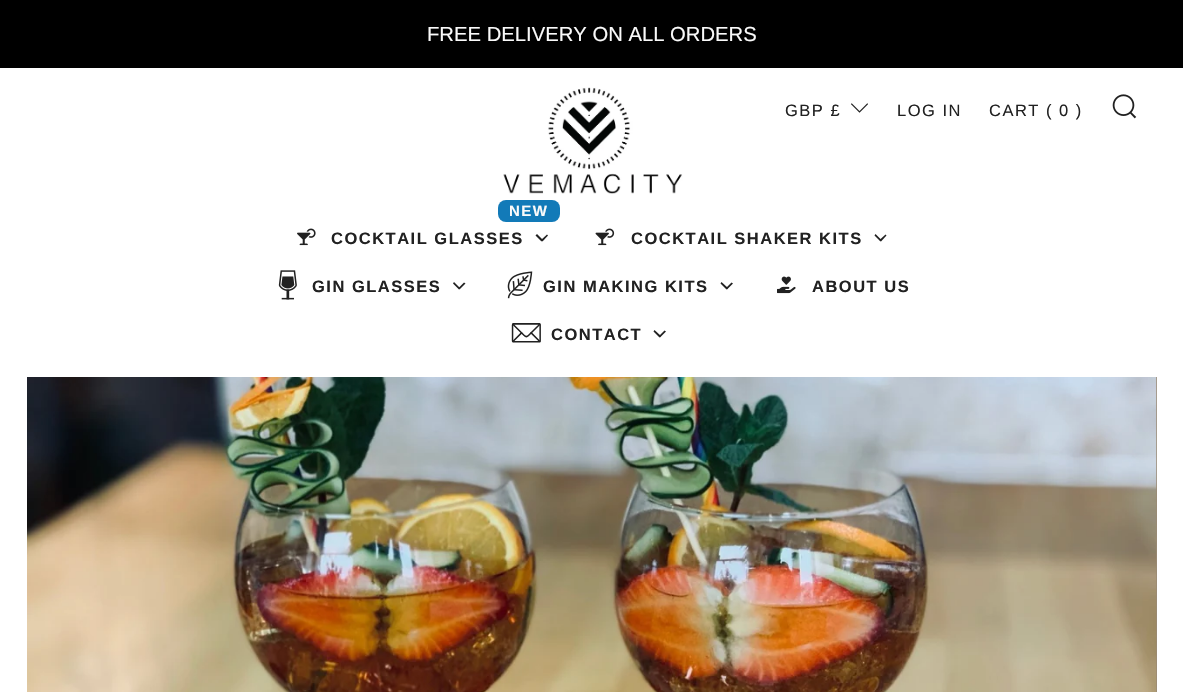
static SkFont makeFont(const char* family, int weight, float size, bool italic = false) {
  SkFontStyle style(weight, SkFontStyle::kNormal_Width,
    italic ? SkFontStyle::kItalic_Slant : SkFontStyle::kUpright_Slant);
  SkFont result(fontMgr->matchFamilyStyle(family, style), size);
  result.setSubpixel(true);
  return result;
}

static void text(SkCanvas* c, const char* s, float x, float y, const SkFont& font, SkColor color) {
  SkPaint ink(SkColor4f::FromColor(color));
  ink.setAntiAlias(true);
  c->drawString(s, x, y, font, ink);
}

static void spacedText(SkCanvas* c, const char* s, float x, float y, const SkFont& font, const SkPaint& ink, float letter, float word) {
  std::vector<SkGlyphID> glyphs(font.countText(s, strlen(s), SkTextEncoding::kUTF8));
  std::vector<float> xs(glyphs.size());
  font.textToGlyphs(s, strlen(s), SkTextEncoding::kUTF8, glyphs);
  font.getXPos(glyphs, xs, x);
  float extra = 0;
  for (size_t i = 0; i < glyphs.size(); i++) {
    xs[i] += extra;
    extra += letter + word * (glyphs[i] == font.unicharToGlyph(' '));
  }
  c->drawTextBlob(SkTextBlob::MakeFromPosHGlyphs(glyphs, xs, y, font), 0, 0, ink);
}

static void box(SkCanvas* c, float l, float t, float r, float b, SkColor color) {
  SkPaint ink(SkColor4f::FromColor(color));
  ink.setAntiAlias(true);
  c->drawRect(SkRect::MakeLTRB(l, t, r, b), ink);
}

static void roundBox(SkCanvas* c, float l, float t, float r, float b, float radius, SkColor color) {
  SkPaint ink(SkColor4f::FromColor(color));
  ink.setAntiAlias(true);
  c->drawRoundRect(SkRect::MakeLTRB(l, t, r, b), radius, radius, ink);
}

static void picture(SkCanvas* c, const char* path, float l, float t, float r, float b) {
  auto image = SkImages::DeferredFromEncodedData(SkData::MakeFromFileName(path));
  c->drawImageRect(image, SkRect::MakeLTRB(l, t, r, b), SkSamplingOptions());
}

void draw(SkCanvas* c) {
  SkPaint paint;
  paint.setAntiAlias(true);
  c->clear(0xffffffff);
  box(c, 0, 0, 1183, 68, 0xff000000);
  SkFont face1 = makeFont("Liberation Sans", 400, 20.25f);
  text(c, "FREE DELIVERY ON ALL ORDERS", 427, 41, face1, 0xfffafafa);
  picture(c, "img_01.png", 503, 87, 683, 194);
  SkFont face2 = makeFont("Liberation Sans", 400, 16.5f);
  paint.setColor(0xff212121);
  spacedText(c, "GBP £", 785, 116, face2, paint, 1.5f, 0);
  picture(c, "img_02.png", 851, 103, 868, 113);
  spacedText(c, "LOG IN", 897, 116, face2, paint, 1.5f, 0);
  spacedText(c, "CART ( 0 )", 989, 116, face2, paint, 1.5f, 0);
  picture(c, "img_03.png", 1112, 94, 1137, 119);
  roundBox(c, 498, 200, 560, 222, 8, 0xff127ab8);
  SkFont face3 = makeFont("Liberation Sans", 700, 15);
  paint.setColor(0xfffafafa);
  spacedText(c, "NEW", 509, 216, face3, paint, 1.5f, 0);
  picture(c, "img_04.png", 297, 228, 316, 246);
  SkFont face4 = makeFont("Liberation Sans", 700, 16.5f);
  paint.setColor(0xff212121);
  spacedText(c, "COCKTAIL GLASSES", 331, 244, face4, paint, 1.5f, 0);
  c->drawPath(SkPathBuilder().moveTo(547, 234.5f).lineTo(548, 235.5f).lineTo(542.5f, 241.5f).lineTo(541, 240).close().detach(), paint);
  c->drawPath(SkPathBuilder().moveTo(537, 234).lineTo(543, 240).lineTo(541.5f, 241.5f).lineTo(535.5f, 235.5f).close().detach(), paint);
  picture(c, "img_05.png", 595, 228, 615, 246);
  spacedText(c, "COCKTAIL SHAKER KITS", 631, 244, face4, paint, 1.5f, 0);
  c->drawPath(SkPathBuilder().moveTo(885.5f, 234.5f).lineTo(886.5f, 235.5f).lineTo(881, 241.5f).lineTo(879.5f, 240).close().detach(), paint);
  c->drawPath(SkPathBuilder().moveTo(875.5f, 234).lineTo(881.5f, 240).lineTo(880.5f, 241.5f).lineTo(874.5f, 235.5f).close().detach(), paint);
  picture(c, "img_06.png", 278, 270, 297, 300);
  spacedText(c, "GIN GLASSES", 312, 292, face4, paint, 1.5f, 0);
  c->drawPath(SkPathBuilder().moveTo(464, 282.5f).lineTo(465.5f, 283.5f).lineTo(459.5f, 289.5f).lineTo(458.5f, 288).close().detach(), paint);
  c->drawPath(SkPathBuilder().moveTo(454, 282).lineTo(460, 288).lineTo(459, 289.5f).lineTo(453, 283.5f).close().detach(), paint);
  picture(c, "img_07.png", 507, 271, 533, 299);
  spacedText(c, "GIN MAKING KITS", 543, 292, face4, paint, 1.5f, 0);
  c->drawPath(SkPathBuilder().moveTo(731.5f, 282.5f).lineTo(733, 283.5f).lineTo(727, 289.5f).lineTo(726, 288).close().detach(), paint);
  c->drawPath(SkPathBuilder().moveTo(721.5f, 282).lineTo(728, 288).lineTo(726.5f, 289.5f).lineTo(720.5f, 283.5f).close().detach(), paint);
  picture(c, "img_08.png", 777, 276, 796, 294);
  spacedText(c, "ABOUT US", 812, 292, face4, paint, 1.5f, 0);
  picture(c, "img_09.png", 511, 323, 541, 343);
  spacedText(c, "CONTACT", 551, 340, face4, paint, 1.5f, 0);
  c->drawPath(SkPathBuilder().moveTo(664.5f, 330.5f).lineTo(666, 331.5f).lineTo(660, 337.5f).lineTo(659, 336).close().detach(), paint);
  c->drawPath(SkPathBuilder().moveTo(654.5f, 330).lineTo(661, 336).lineTo(659.5f, 337.5f).lineTo(653.5f, 331.5f).close().detach(), paint);
  box(c, 1156, 377, 1157, 692, 0xff9a8974);
  picture(c, "img_10.png", 27, 377, 1157, 692);
}
